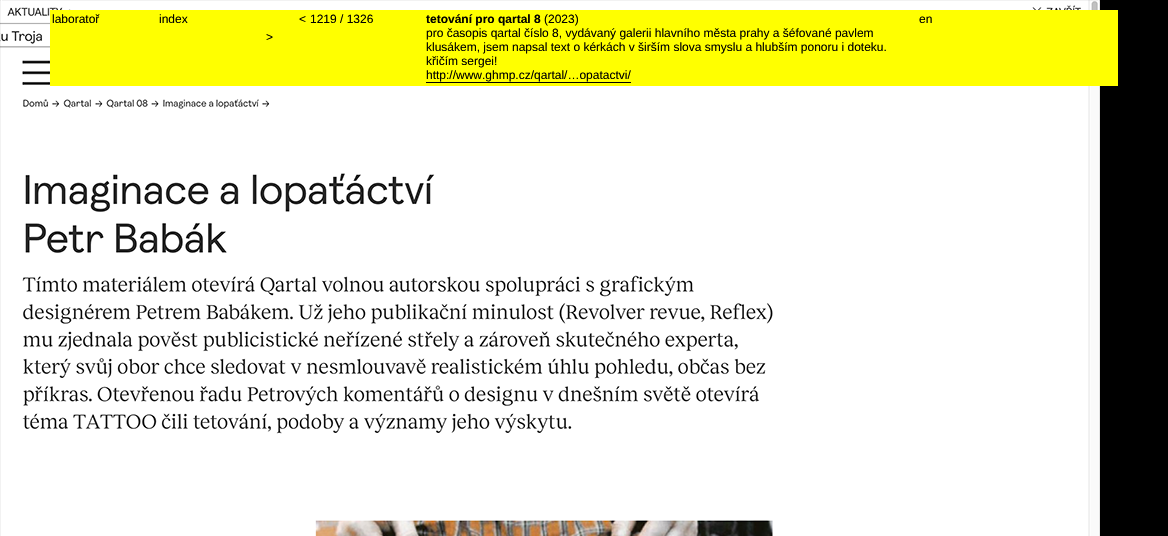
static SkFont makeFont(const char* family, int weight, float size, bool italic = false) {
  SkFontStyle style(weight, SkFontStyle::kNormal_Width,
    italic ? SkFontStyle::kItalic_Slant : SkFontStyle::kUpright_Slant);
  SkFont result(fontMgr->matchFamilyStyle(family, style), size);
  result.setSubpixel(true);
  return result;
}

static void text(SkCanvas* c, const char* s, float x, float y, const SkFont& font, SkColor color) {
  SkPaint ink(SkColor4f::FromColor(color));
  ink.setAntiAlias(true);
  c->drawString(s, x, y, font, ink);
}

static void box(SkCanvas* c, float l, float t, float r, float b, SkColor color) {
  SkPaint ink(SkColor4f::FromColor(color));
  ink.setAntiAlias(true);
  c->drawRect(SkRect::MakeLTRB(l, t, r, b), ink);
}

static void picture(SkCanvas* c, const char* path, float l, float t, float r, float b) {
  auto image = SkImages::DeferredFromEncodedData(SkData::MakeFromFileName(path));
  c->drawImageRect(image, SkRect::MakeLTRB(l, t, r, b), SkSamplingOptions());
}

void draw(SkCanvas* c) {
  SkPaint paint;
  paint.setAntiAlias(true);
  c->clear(0xff000000);
  picture(c, "img_01.png", 0, 0, 1100, 536);
  box(c, 50, 10, 1118, 86, 0xffffff00);
  SkFont face1 = makeFont("Liberation Sans", 400, 12);
  text(c, "laboratoř", 52, 23, face1, 0xff000000);
  text(c, "index", 159, 23, face1, 0xff000000);
  text(c, "<", 299, 23, face1, 0xff000000);
  text(c, "1219 / 1326", 310, 23, face1, 0xff000000);
  text(c, ">", 266, 41, face1, 0xff000000);
  SkFont face2 = makeFont("Liberation Sans", 700, 12);
  text(c, "tetování pro qartal 8", 426, 23, face2, 0xff000000);
  text(c, "(2023)", 544, 23, face1, 0xff000000);
  text(c, "pro časopis qartal číslo 8, vydávaný galerii hlavního města prahy a šéfované pavlem", 426, 37, face1, 0xff000000);
  text(c, "klusákem, jsem napsal text o kérkách v širším slova smyslu a hlubším ponoru i doteku.", 426, 51, face1, 0xff000000);
  text(c, "křičím sergei!", 426, 65, face1, 0xff000000);
  text(c, "http://www.ghmp.cz/qartal/…opatactvi/", 426, 79, face1, 0xff000000);
  box(c, 426, 82, 631, 83, 0xff000000);
  text(c, "en", 919, 23, face1, 0xff000000);
}
